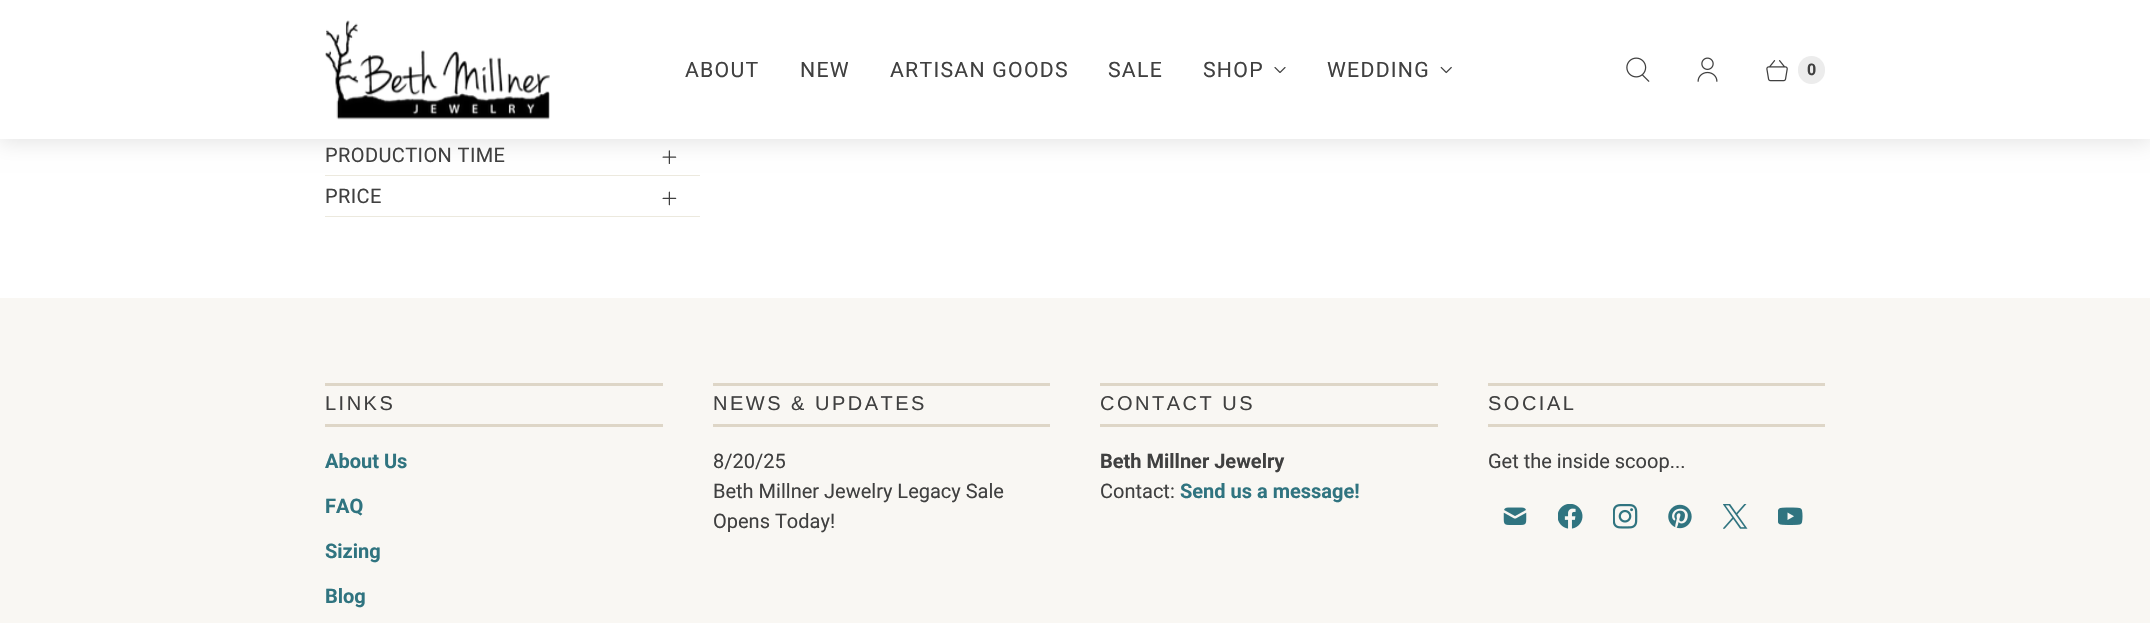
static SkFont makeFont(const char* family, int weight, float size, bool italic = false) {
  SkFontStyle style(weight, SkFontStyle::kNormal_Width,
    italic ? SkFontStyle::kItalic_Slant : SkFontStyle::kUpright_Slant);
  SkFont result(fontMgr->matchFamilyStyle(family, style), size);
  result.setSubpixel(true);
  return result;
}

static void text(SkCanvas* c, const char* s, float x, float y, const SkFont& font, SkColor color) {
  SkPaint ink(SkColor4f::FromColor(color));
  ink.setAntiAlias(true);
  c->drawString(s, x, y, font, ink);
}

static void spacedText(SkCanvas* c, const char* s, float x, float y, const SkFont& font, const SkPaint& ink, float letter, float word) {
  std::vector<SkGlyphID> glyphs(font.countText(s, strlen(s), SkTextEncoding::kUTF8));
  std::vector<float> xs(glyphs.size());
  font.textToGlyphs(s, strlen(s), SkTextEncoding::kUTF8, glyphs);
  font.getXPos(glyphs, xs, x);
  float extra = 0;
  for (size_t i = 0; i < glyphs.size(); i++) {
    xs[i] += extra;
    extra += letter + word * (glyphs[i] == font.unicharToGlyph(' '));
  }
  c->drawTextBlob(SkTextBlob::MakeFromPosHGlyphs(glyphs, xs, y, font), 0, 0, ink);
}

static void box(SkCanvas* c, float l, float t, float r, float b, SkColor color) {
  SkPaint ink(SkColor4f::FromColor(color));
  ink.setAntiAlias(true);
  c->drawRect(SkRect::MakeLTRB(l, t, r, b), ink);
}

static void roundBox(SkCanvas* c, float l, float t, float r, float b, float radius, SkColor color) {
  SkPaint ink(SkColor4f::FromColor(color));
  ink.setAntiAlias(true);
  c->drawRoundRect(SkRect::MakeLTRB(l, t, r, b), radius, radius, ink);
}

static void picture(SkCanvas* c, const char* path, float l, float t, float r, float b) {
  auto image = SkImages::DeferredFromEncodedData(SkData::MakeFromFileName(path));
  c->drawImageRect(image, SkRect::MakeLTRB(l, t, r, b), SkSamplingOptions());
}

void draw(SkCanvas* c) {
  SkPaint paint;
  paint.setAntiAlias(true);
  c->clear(0xffffffff);
  picture(c, "img_07.png", 662, 150, 677, 164);
  paint.setColor(0x1a000000);
  paint.setMaskFilter(SkMaskFilter::MakeBlur(kNormal_SkBlurStyle, 10));
  c->drawRect(SkRect::MakeLTRB(-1, -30, 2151, 143), paint);
  paint.setMaskFilter(nullptr);
  box(c, 0, 0, 2150, 139, 0xffffffff);
  picture(c, "img_01.png", 325, 20, 550, 120);
  SkFont face1 = makeFont("Roboto", 400, 21.25f);
  paint.setColor(0xff404040);
  spacedText(c, "ABOUT", 685, 77, face1, paint, 1.25f, 0);
  spacedText(c, "NEW", 800, 77, face1, paint, 1.25f, 0);
  spacedText(c, "ARTISAN GOODS", 890, 77, face1, paint, 1.25f, 0);
  spacedText(c, "SALE", 1108, 77, face1, paint, 1.25f, 0);
  spacedText(c, "SHOP", 1203, 77, face1, paint, 1.25f, 0);
  picture(c, "img_02.png", 1274, 67, 1286, 73);
  spacedText(c, "WEDDING", 1327, 77, face1, paint, 1.25f, 0);
  picture(c, "img_03.png", 1440, 66, 1452, 74);
  picture(c, "img_04.png", 1626, 57, 1650, 82);
  picture(c, "img_05.png", 1697, 57, 1718, 82);
  picture(c, "img_06.png", 1766, 60, 1788, 82);
  roundBox(c, 1798, 56, 1825, 84, 13.5f, 0xffececec);
  SkFont face2 = makeFont("Roboto", 700, 16);
  text(c, "0", 1807, 75, face2, 0xff404040);
  box(c, 325, 175, 700, 176, 0xffece9de);
  SkFont face3 = makeFont("Roboto", 400, 20);
  spacedText(c, "PRODUCTION TIME", 325, 162, face3, paint, 0.4f, 0);
  box(c, 325, 216, 700, 217, 0xffece9de);
  spacedText(c, "PRICE", 325, 203, face3, paint, 0.4f, 0);
  picture(c, "img_08.png", 662, 191, 677, 206);
  box(c, 0, 298, 2150, 623, 0xfff9f7f3);
  box(c, 325, 383, 663, 386, 0xffded6c7);
  box(c, 325, 424, 663, 427, 0xffded6c7);
  SkFont face4 = makeFont("Liberation Sans", 400, 20);
  spacedText(c, "LINKS", 325, 410, face4, paint, 2.5f, 0);
  SkFont face5 = makeFont("Roboto", 700, 20);
  text(c, "About Us", 325, 468, face5, 0xff307480);
  text(c, "FAQ", 325, 513, face5, 0xff307480);
  text(c, "Sizing", 325, 558, face5, 0xff307480);
  text(c, "Blog", 325, 603, face5, 0xff307480);
  box(c, 713, 383, 1050, 386, 0xffded6c7);
  box(c, 713, 424, 1050, 427, 0xffded6c7);
  spacedText(c, "NEWS & UPDATES", 713, 410, face4, paint, 2.5f, 0);
  text(c, "8/20/25", 713, 468, face3, 0xff404040);
  text(c, "Beth Millner Jewelry Legacy Sale", 713, 498, face3, 0xff404040);
  text(c, "Opens Today!", 713, 528, face3, 0xff404040);
  box(c, 1100, 383, 1438, 386, 0xffded6c7);
  box(c, 1100, 424, 1438, 427, 0xffded6c7);
  spacedText(c, "CONTACT US", 1100, 410, face4, paint, 2.5f, 0);
  text(c, "Beth Millner Jewelry", 1100, 468, face5, 0xff404040);
  text(c, "Contact:", 1100, 498, face3, 0xff404040);
  text(c, "Send us a message!", 1180, 498, face5, 0xff307480);
  box(c, 1488, 383, 1825, 386, 0xffded6c7);
  box(c, 1488, 424, 1825, 427, 0xffded6c7);
  spacedText(c, "SOCIAL", 1488, 410, face4, paint, 2.5f, 0);
  text(c, "Get the inside scoop...", 1488, 468, face3, 0xff404040);
  picture(c, "img_09.png", 1503, 507, 1527, 525);
  picture(c, "img_10.png", 1558, 504, 1583, 529);
  picture(c, "img_11.png", 1613, 504, 1638, 529);
  picture(c, "img_12.png", 1668, 504, 1692, 529);
  picture(c, "img_13.png", 1723, 504, 1748, 529);
  picture(c, "img_14.png", 1778, 507, 1803, 525);
}
